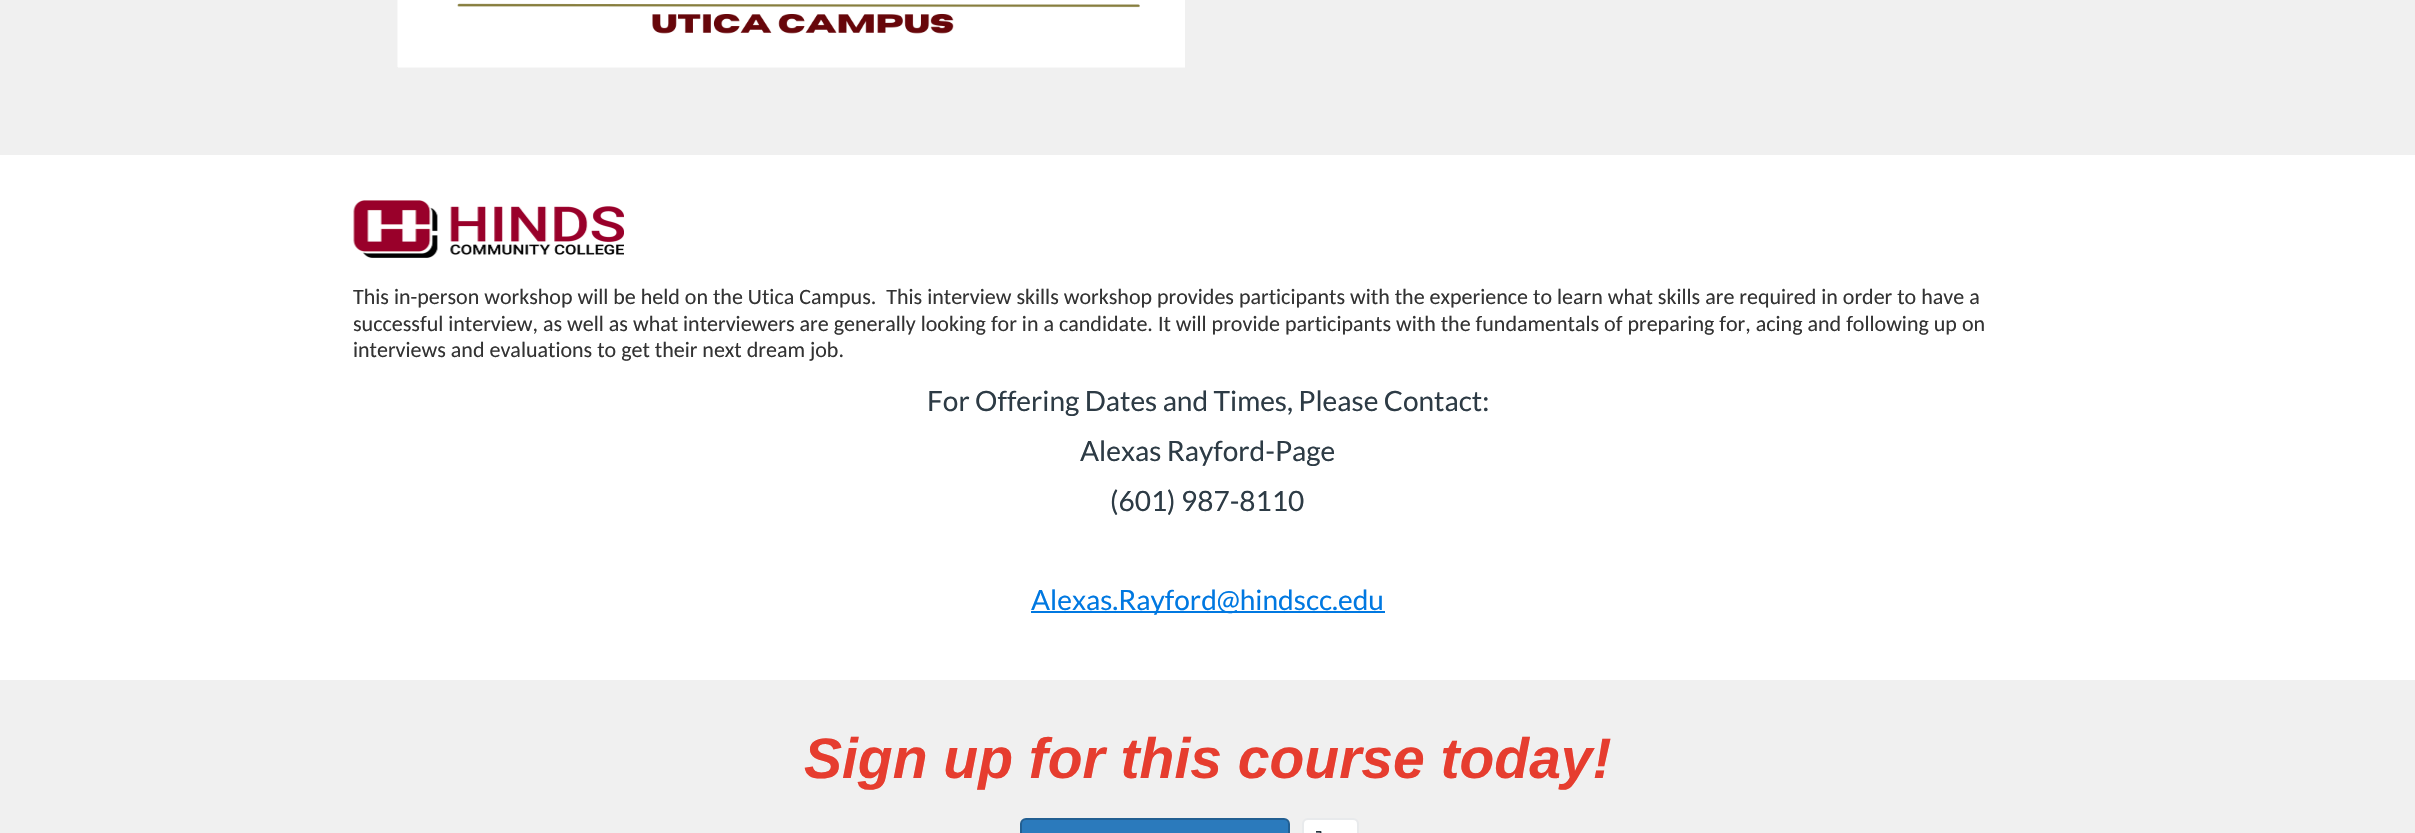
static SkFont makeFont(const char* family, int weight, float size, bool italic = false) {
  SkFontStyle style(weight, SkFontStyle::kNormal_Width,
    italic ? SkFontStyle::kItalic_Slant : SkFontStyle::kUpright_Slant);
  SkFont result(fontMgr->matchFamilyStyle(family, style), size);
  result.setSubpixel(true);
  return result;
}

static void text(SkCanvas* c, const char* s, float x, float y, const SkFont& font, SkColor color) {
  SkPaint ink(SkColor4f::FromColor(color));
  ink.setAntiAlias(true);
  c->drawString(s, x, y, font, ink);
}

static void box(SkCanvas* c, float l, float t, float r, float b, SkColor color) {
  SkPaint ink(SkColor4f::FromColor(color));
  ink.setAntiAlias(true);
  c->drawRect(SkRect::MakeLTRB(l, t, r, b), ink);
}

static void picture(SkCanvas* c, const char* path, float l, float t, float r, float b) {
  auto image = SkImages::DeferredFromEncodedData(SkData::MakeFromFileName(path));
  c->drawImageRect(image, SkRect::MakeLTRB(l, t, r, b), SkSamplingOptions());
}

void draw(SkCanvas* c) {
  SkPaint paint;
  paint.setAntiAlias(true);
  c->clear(0xffffffff);
  box(c, 0, 0, 2415, 155, 0xfff0f0f0);
  box(c, 398, 67, 1185, 68, 0xfff8f8f8);
  picture(c, "img_01.png", 397, 0, 1185, 67);
  picture(c, "img_02.png", 353, 200, 624, 258);
  SkFont face1 = makeFont("Carlito", 400, 22);
  text(c, "This in-person workshop will be held on the Utica Campus.  This interview skills workshop provides participants with the experience to learn what skills are required in order to have a", 353, 304, face1, 0xff333333);
  text(c, "successful interview, as well as what interviewers are generally looking for in a candidate. It will provide participants with the fundamentals of preparing for, acing and following up on", 353, 331, face1, 0xff333333);
  text(c, "interviews and evaluations to get their next dream job.", 353, 357, face1, 0xff333333);
  SkFont face2 = makeFont("Lato", 400, 28);
  text(c, "For Offering Dates and Times, Please Contact:", 927, 411, face2, 0xff2d3b45);
  text(c, "Alexas Rayford-Page", 1080, 461, face2, 0xff2d3b45);
  text(c, "(601) 987-8110", 1110, 511, face2, 0xff2d3b45);
  box(c, 1031, 611, 1385, 613, 0xff0078e1);
  text(c, "Alexas.Rayford@hindscc.edu", 1031, 610, face2, 0xff0078e1);
  box(c, 0, 680, 2415, 833, 0xfff0f0f0);
  SkFont face3 = makeFont("Liberation Sans", 700, 57, true);
  text(c, "Sign up for this course today!", 804, 778, face3, 0xffe63d2f);
  paint.setColor(0xff2b7abc);
  c->drawRoundRect(SkRect::MakeLTRB(1021, 819, 1289, 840), 5, 5, paint);
  paint.setStyle(SkPaint::kStroke_Style);
  paint.setStrokeWidth(2);
  paint.setColor(0xff225f92);
  c->drawRoundRect(SkRect::MakeLTRB(1021, 819, 1289, 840), 5, 5, paint);
  paint.setStyle(SkPaint::kFill_Style);
  paint.setColor(0xffffffff);
  c->drawRoundRect(SkRect::MakeLTRB(1303, 819, 1358, 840), 5, 5, paint);
  paint.setStyle(SkPaint::kStroke_Style);
  paint.setColor(0xffe8eaec);
  c->drawRoundRect(SkRect::MakeLTRB(1303, 819, 1358, 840), 5, 5, paint);
  picture(c, "img_03.png", 1316, 831, 1322, 833);
}
